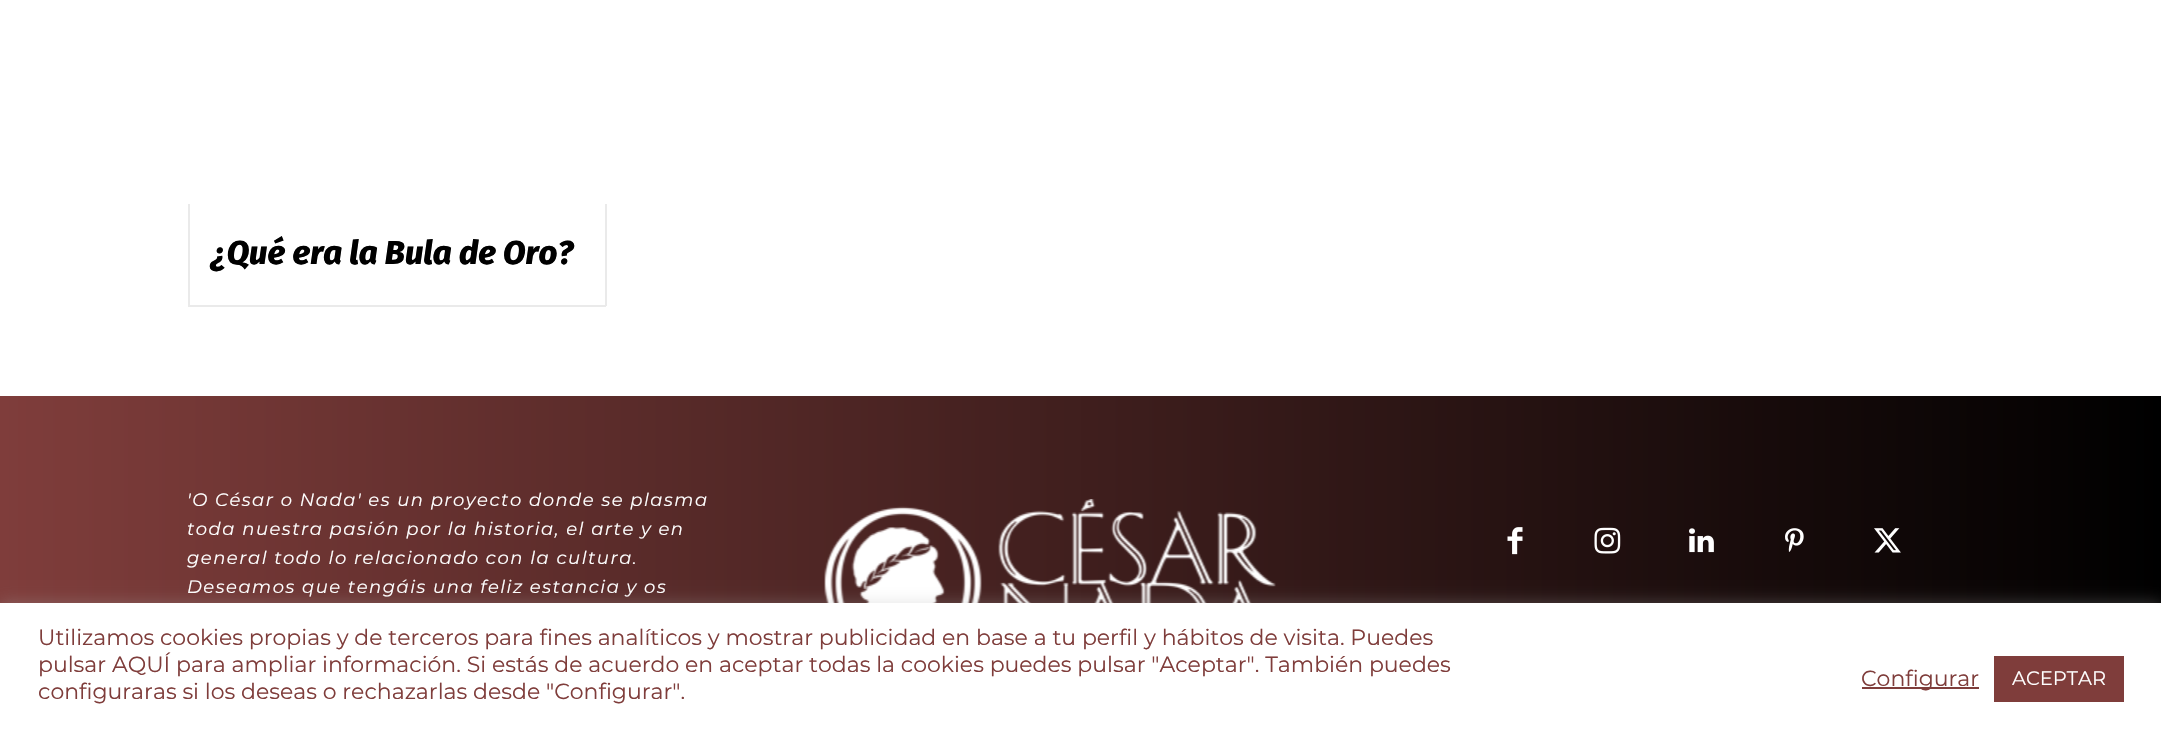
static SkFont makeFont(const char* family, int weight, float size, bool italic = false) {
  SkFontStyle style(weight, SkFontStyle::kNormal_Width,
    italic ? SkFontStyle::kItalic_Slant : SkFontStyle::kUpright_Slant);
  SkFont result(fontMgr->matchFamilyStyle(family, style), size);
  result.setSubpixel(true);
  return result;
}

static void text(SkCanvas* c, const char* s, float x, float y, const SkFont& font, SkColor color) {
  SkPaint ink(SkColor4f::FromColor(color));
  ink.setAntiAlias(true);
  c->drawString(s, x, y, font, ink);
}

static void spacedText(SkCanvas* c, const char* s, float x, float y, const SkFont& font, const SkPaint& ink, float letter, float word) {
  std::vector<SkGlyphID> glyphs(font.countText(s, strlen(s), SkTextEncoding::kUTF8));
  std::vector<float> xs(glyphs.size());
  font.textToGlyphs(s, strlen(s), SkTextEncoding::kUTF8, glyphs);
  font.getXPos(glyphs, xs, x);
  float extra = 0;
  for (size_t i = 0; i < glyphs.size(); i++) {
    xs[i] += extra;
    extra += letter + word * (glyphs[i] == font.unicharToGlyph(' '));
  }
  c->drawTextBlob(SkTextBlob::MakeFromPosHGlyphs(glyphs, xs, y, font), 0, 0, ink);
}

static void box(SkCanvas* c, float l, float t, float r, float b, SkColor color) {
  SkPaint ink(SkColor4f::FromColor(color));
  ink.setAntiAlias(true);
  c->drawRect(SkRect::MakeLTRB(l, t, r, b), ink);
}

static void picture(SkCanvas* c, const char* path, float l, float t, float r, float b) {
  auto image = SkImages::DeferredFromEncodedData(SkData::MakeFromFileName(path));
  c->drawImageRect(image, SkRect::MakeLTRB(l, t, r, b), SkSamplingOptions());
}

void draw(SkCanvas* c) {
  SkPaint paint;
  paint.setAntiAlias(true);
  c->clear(0xffffffff);
  box(c, 605, 204, 607, 306, 0xffeaeaea);
  box(c, 188, 305, 606, 307, 0xffeaeaea);
  box(c, 188, 204, 190, 306, 0xffeaeaea);
  SkFont face1 = makeFont("Fira Sans", 800, 33, true);
  text(c, "¿Qué era la Bula de Oro?", 211, 264, face1, 0xff000000);
  {
    const SkColor colors[] = {0xff000000, 0xff7f3d3b};
    const float stops[] = {0, 1};
    const SkPoint ends[] = {{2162, 579}, {0, 579}};
    paint.setShader(SkGradientShader::MakeLinear(ends, colors, stops, 2, SkTileMode::kClamp));
    paint.setAlpha(255);
  }
  c->drawRect(SkRect::MakeLTRB(0, 396, 2161, 603), paint);
  SkFont face2 = makeFont("Montserrat", 400, 18, true);
  paint.setShader(nullptr);
  paint.setColor(0xffffffff);
  spacedText(c, "'O César o Nada' es un proyecto donde se plasma", 187, 506, face2, paint, 1.5f, 0);
  spacedText(c, "toda nuestra pasión por la historia, el arte y en", 187, 535, face2, paint, 1.5f, 0);
  spacedText(c, "general todo lo relacionado con la cultura.", 187, 564, face2, paint, 1.5f, 0);
  spacedText(c, "Deseamos que tengáis una feliz estancia y os", 187, 593, face2, paint, 1.5f, 0);
  picture(c, "img_01.png", 824, 499, 1276, 603);
  picture(c, "img_02.png", 1507, 527, 1523, 555);
  picture(c, "img_03.png", 1594, 527, 1621, 554);
  picture(c, "img_04.png", 1689, 528, 1714, 553);
  picture(c, "img_05.png", 1785, 528, 1804, 552);
  picture(c, "img_06.png", 1874, 528, 1901, 553);
  paint.setColor(0x4dacabab);
  paint.setMaskFilter(SkMaskFilter::MakeBlur(kNormal_SkBlurStyle, 7.5f));
  c->drawRect(SkRect::MakeLTRB(0, 602, 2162, 752), paint);
  paint.setMaskFilter(nullptr);
  box(c, 0, 603, 2161, 752, 0xffffffff);
  SkFont face3 = makeFont("Montserrat", 400, 22);
  text(c, "Utilizamos cookies propias y de terceros para fines analíticos y mostrar publicidad en base a tu perfil y hábitos de visita. Puedes", 38, 645, face3, 0xff7f3d3b);
  text(c, "pulsar AQUÍ para ampliar información. Si estás de acuerdo en aceptar todas la cookies puedes pulsar \"Aceptar\". También puedes", 38, 672, face3, 0xff7f3d3b);
  text(c, "configuraras si los deseas o rechazarlas desde \"Configurar\".", 38, 699, face3, 0xff7f3d3b);
  box(c, 1862, 687, 1979, 689, 0xff7f3d3b);
  text(c, "Configurar", 1861, 686, face3, 0xff7f3d3b);
  box(c, 1994, 656, 2124, 702, 0xff7f3d3b);
  SkFont face4 = makeFont("Montserrat", 400, 19.5f);
  text(c, "ACEPTAR", 2012, 685, face4, 0xffffffff);
}
